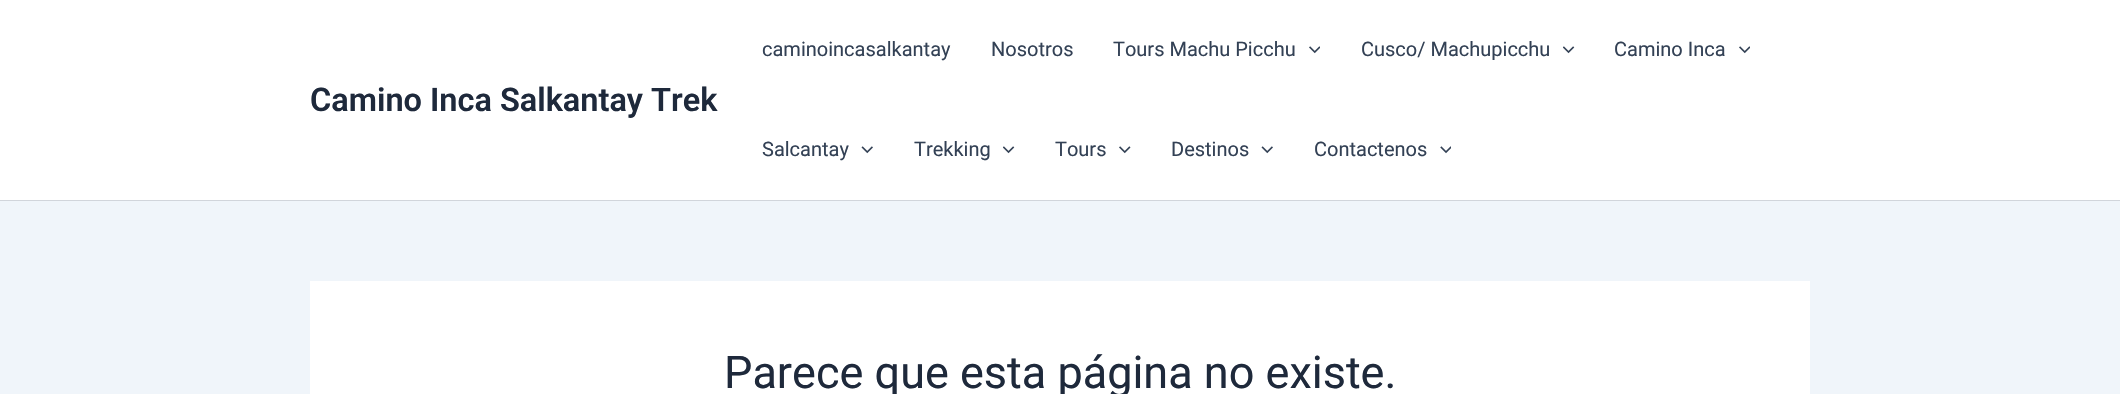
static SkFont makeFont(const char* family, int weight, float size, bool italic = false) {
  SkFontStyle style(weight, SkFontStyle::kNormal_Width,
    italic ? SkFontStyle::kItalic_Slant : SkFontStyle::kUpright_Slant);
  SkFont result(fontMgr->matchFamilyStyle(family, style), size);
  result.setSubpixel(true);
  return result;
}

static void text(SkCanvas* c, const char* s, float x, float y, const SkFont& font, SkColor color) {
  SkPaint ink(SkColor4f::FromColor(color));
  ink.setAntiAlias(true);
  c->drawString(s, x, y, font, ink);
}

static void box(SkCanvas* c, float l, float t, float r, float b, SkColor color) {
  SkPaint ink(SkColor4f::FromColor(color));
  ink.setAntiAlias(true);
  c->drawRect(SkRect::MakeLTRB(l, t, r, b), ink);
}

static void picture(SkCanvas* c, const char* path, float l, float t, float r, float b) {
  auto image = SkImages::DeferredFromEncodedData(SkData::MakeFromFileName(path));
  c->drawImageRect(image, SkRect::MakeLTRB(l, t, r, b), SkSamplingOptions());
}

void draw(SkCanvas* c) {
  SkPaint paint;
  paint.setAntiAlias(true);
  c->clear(0xfff0f5fa);
  box(c, 0, 0, 2120, 200, 0xffffffff);
  box(c, 0, 200, 2120, 201, 0xffd1d5db);
  SkFont face1 = makeFont("Roboto", 600, 32.5f);
  text(c, "Camino Inca Salkantay Trek", 310, 111, face1, 0xff1e293b);
  SkFont face2 = makeFont("Roboto", 400, 20);
  text(c, "caminoincasalkantay", 762, 56, face2, 0xff334155);
  text(c, "Nosotros", 991, 56, face2, 0xff334155);
  text(c, "Tours Machu Picchu", 1113, 56, face2, 0xff334155);
  picture(c, "img_01.png", 1309, 46, 1320, 54);
  text(c, "Cusco/ Machupicchu", 1361, 56, face2, 0xff334155);
  picture(c, "img_02.png", 1563, 46, 1575, 54);
  text(c, "Camino Inca", 1614, 56, face2, 0xff334155);
  picture(c, "img_01.png", 1739, 46, 1750, 54);
  text(c, "Salcantay", 762, 156, face2, 0xff334155);
  picture(c, "img_03.png", 861, 146, 873, 154);
  text(c, "Trekking", 914, 156, face2, 0xff334155);
  picture(c, "img_02.png", 1003, 146, 1015, 154);
  text(c, "Tours", 1055, 156, face2, 0xff334155);
  picture(c, "img_04.png", 1119, 146, 1131, 154);
  text(c, "Destinos", 1171, 156, face2, 0xff334155);
  picture(c, "img_03.png", 1261, 146, 1273, 154);
  text(c, "Contactenos", 1314, 156, face2, 0xff334155);
  picture(c, "img_05.png", 1440, 146, 1451, 154);
  box(c, 310, 281, 1810, 394, 0xffffffff);
  SkFont face3 = makeFont("Roboto", 400, 45);
  text(c, "Parece que esta página no existe.", 724, 388, face3, 0xff1e293b);
}
